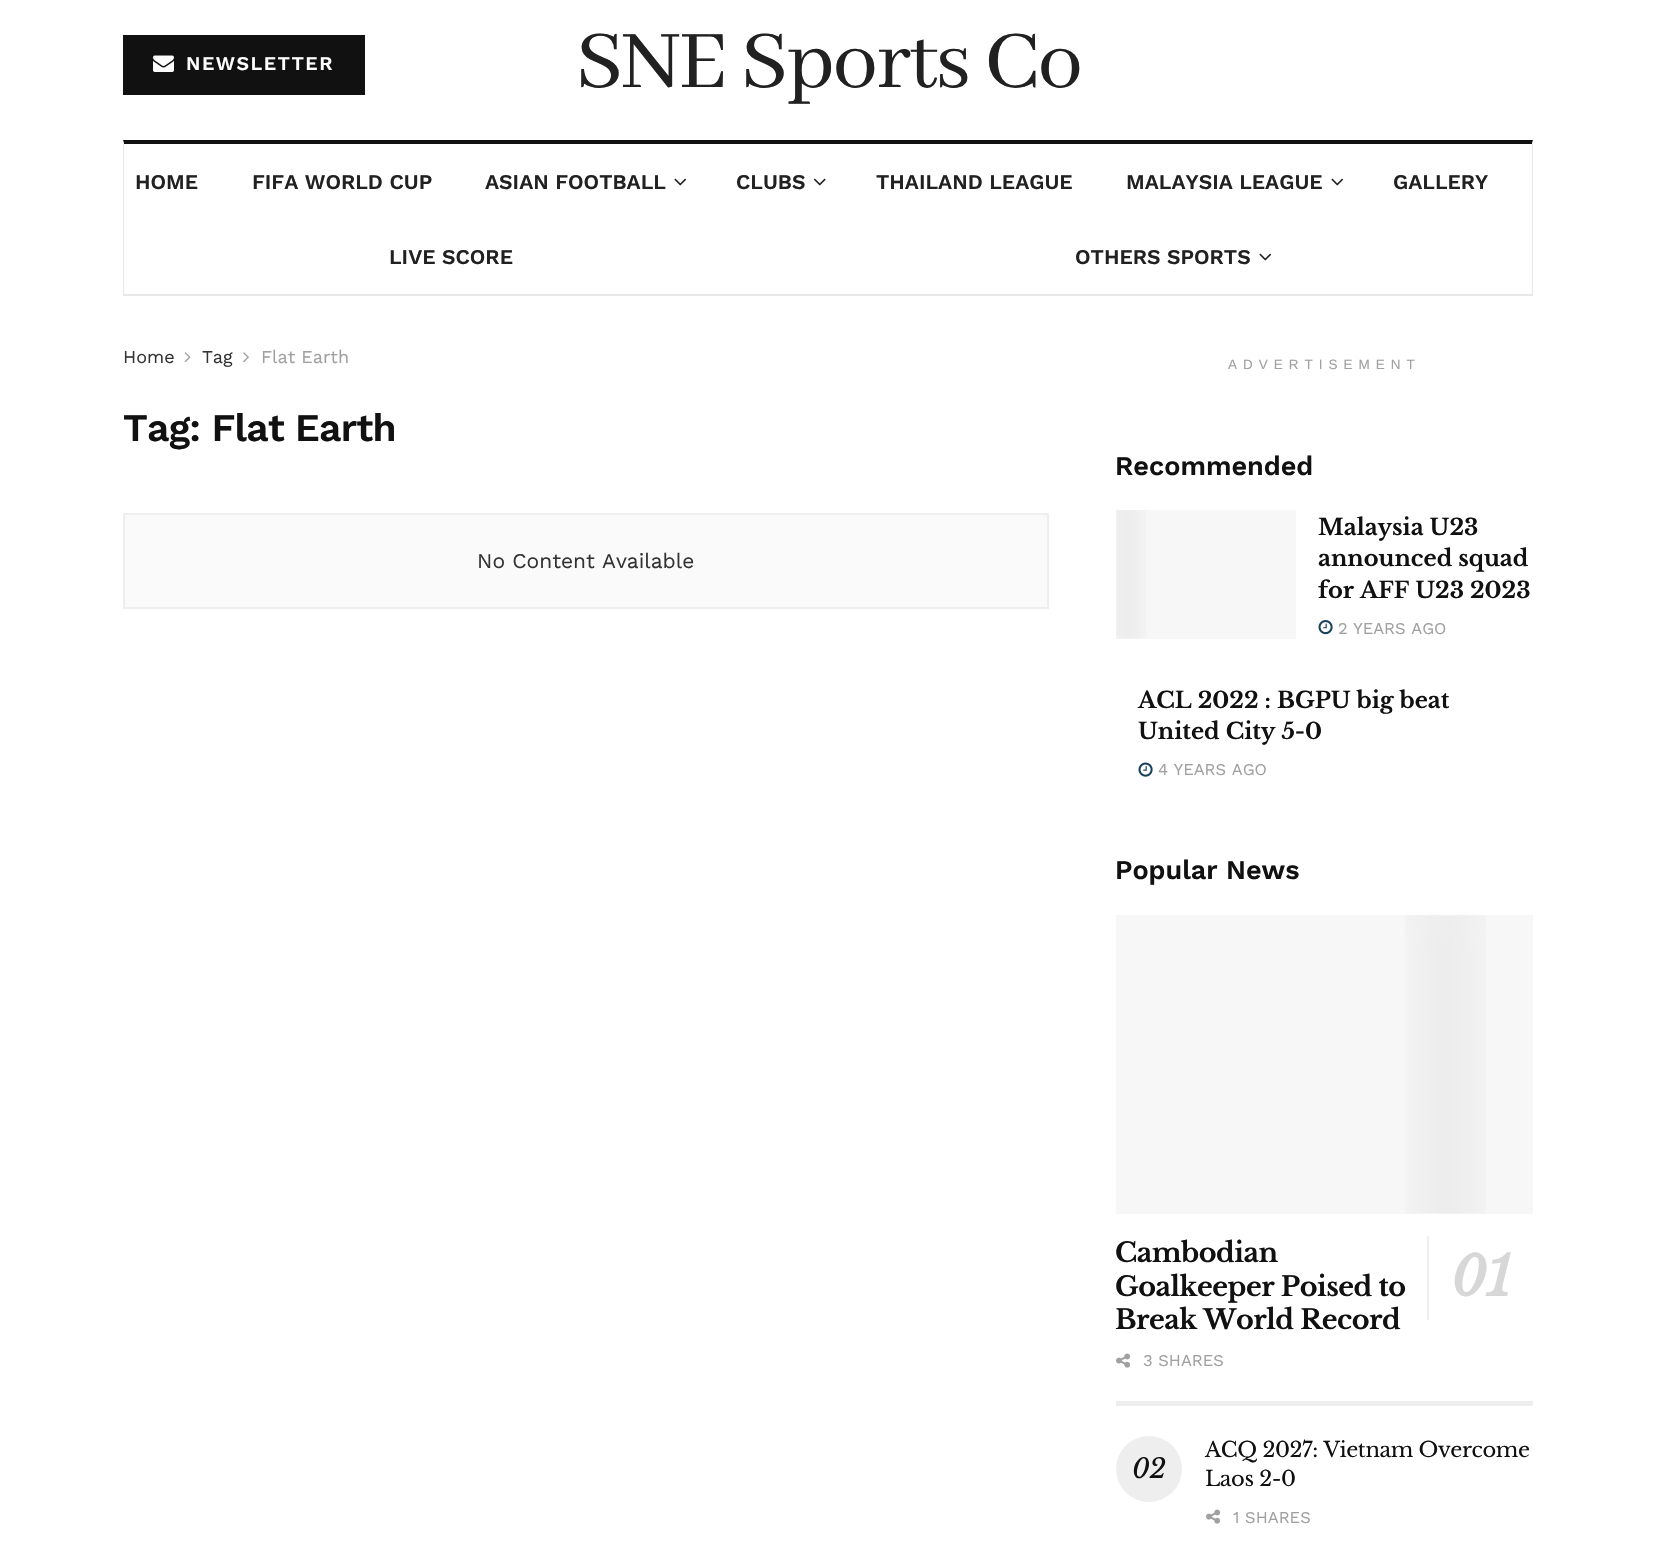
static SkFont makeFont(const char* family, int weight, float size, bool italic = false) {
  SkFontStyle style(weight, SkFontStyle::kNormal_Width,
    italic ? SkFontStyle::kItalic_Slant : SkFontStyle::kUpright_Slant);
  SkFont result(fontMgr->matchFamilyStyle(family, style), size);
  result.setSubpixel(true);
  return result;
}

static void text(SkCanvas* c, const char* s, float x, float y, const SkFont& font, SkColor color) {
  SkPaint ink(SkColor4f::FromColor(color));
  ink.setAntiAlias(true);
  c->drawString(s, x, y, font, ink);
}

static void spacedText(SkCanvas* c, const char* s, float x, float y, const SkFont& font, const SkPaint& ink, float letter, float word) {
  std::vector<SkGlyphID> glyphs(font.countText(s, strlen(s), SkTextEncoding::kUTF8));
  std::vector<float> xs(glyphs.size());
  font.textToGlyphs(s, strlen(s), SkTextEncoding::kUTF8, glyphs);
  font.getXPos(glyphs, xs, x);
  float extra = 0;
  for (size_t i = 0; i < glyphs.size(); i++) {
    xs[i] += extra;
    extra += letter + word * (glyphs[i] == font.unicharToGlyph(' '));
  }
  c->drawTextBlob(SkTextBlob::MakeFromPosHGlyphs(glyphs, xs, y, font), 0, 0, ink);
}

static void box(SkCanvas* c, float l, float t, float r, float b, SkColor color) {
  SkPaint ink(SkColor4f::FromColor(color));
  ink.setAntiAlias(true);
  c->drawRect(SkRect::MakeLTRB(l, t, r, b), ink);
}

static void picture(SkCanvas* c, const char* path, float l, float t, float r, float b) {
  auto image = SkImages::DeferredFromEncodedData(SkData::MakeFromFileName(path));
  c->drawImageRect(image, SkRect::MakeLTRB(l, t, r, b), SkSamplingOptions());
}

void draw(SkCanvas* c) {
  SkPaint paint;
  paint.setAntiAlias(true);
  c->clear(0xffffffff);
  box(c, 123, 35, 365, 95, 0xff111111);
  picture(c, "img_01.png", 153, 55, 174, 72);
  SkFont face1 = makeFont("Work Sans", 600, 19.5f);
  paint.setColor(0xffffffff);
  spacedText(c, "NEWSLETTER", 186, 70, face1, paint, 1.5f, 0);
  SkFont face2 = makeFont("Abhaya Libre", 400, 90);
  paint.setColor(0xff212121);
  spacedText(c, "SNE Sports Co", 576, 87, face2, paint, -1.75f, 0);
  paint.setColor(0xff111111);
  c->drawPath(SkPathBuilder().moveTo(123, 140).lineTo(1533, 140).lineTo(1532, 144).lineTo(124, 144).close().detach(), paint);
  paint.setColor(0xffe8e8e8);
  c->drawPath(SkPathBuilder().moveTo(1533, 140).lineTo(1533, 296).lineTo(1532, 294).lineTo(1532, 144).close().detach(), paint);
  box(c, 123, 294, 1533, 296, 0xffe8e8e8);
  c->drawPath(SkPathBuilder().moveTo(123, 296).lineTo(123, 140).lineTo(124, 144).lineTo(124, 294).close().detach(), paint);
  SkFont face3 = makeFont("Work Sans", 600, 21);
  text(c, "HOME", 135, 189, face3, 0xff212121);
  text(c, "FIFA WORLD CUP", 252, 189, face3, 0xff212121);
  text(c, "ASIAN FOOTBALL", 485, 189, face3, 0xff212121);
  picture(c, "img_02.png", 674, 178, 687, 186);
  text(c, "CLUBS", 736, 189, face3, 0xff212121);
  picture(c, "img_03.png", 813, 178, 826, 186);
  text(c, "THAILAND LEAGUE", 876, 189, face3, 0xff212121);
  text(c, "MALAYSIA LEAGUE", 1126, 189, face3, 0xff212121);
  picture(c, "img_02.png", 1331, 178, 1344, 186);
  text(c, "GALLERY", 1393, 189, face3, 0xff212121);
  text(c, "LIVE SCORE", 389, 264, face3, 0xff212121);
  text(c, "OTHERS SPORTS", 1075, 264, face3, 0xff212121);
  picture(c, "img_02.png", 1259, 253, 1272, 261);
  SkFont face4 = makeFont("Work Sans", 400, 18);
  text(c, "Home", 123, 363, face4, 0xff333333);
  picture(c, "img_04.png", 184, 352, 191, 363);
  text(c, "Tag", 202, 363, face4, 0xff333333);
  picture(c, "img_05.png", 243, 352, 249, 363);
  text(c, "Flat Earth", 261, 363, face4, 0xffa0a0a0);
  SkFont face5 = makeFont("Work Sans", 600, 39);
  paint.setColor(0xff111111);
  spacedText(c, "Tag: Flat Earth", 123, 441, face5, paint, -0.75f, 0);
  paint.setColor(0xfffafafa);
  c->drawRect(SkRect::MakeLTRB(124, 514, 1048, 608), paint);
  paint.setStyle(SkPaint::kStroke_Style);
  paint.setStrokeWidth(2);
  paint.setColor(0xffeeeeee);
  c->drawRect(SkRect::MakeLTRB(124, 514, 1048, 608), paint);
  SkFont face6 = makeFont("Work Sans", 400, 21);
  text(c, "No Content Available", 477, 568, face6, 0xff333333);
  SkFont face7 = makeFont("Liberation Sans", 400, 13.5f);
  paint.setStyle(SkPaint::kFill_Style);
  paint.setColor(0xffa0a0a0);
  spacedText(c, "ADVERTISEMENT", 1228, 369, face7, paint, 6, 0);
  SkFont face8 = makeFont("Work Sans", 600, 27);
  text(c, "Recommended", 1115, 475, face8, 0xff111111);
  box(c, 1116, 510, 1296, 639, 0xfff7f7f7);
  picture(c, "img_06.png", 1116, 510, 1146, 639);
  SkFont face9 = makeFont("Libre Baskerville", 700, 22.5f);
  text(c, "Malaysia U23", 1318, 535, face9, 0xff111111);
  text(c, "announced squad", 1318, 566, face9, 0xff111111);
  text(c, "for AFF U23 2023", 1318, 598, face9, 0xff111111);
  picture(c, "img_07.png", 1318, 620, 1333, 635);
  SkFont face10 = makeFont("Work Sans", 400, 16.5f);
  text(c, "2 YEARS AGO", 1338, 634, face10, 0xffa0a0a0);
  text(c, "ACL 2022 : BGPU big beat", 1138, 708, face9, 0xff111111);
  text(c, "United City 5-0", 1138, 739, face9, 0xff111111);
  picture(c, "img_08.png", 1138, 762, 1153, 777);
  text(c, "4 YEARS AGO", 1158, 775, face10, 0xffa0a0a0);
  text(c, "Popular News", 1115, 879, face8, 0xff111111);
  box(c, 1116, 1401, 1533, 1406, 0xffeeeeee);
  box(c, 1116, 915, 1533, 1214, 0xfff7f7f7);
  picture(c, "img_09.png", 1405, 915, 1486, 1214);
  SkFont face11 = makeFont("Libre Baskerville", 700, 27);
  paint.setColor(0xff111111);
  spacedText(c, "Cambodian", 1115, 1262, face11, paint, -0.5f, 0);
  box(c, 1427, 1236, 1429, 1320, 0xffeeeeee);
  SkFont face12 = makeFont("Libre Baskerville", 700, 54, true);
  paint.setColor(0xffd7d7d7);
  spacedText(c, "01", 1451, 1296, face12, paint, -0.5f, 0);
  paint.setColor(0xff111111);
  spacedText(c, "Goalkeeper Poised to", 1115, 1296, face11, paint, -0.5f, 0);
  spacedText(c, "Break World Record", 1115, 1329, face11, paint, -0.5f, 0);
  picture(c, "img_10.png", 1116, 1353, 1131, 1368);
  text(c, "3 SHARES", 1143, 1366, face10, 0xffa0a0a0);
  SkFont face13 = makeFont("Libre Baskerville", 400, 21);
  spacedText(c, "ACQ 2027: Vietnam Overcome", 1205, 1457, face13, paint, -0.4f, 0);
  paint.setColor(0xffeeeeee);
  c->drawCircle(1149, 1469, 33, paint);
  SkFont face14 = makeFont("Libre Baskerville", 400, 27, true);
  paint.setColor(0xff111111);
  spacedText(c, "02", 1132, 1478, face14, paint, -0.4f, 0);
  spacedText(c, "Laos 2-0", 1205, 1486, face13, paint, -0.4f, 0);
  picture(c, "img_10.png", 1206, 1509, 1221, 1524);
  text(c, "1 SHARES", 1233, 1523, face10, 0xffa0a0a0);
}
